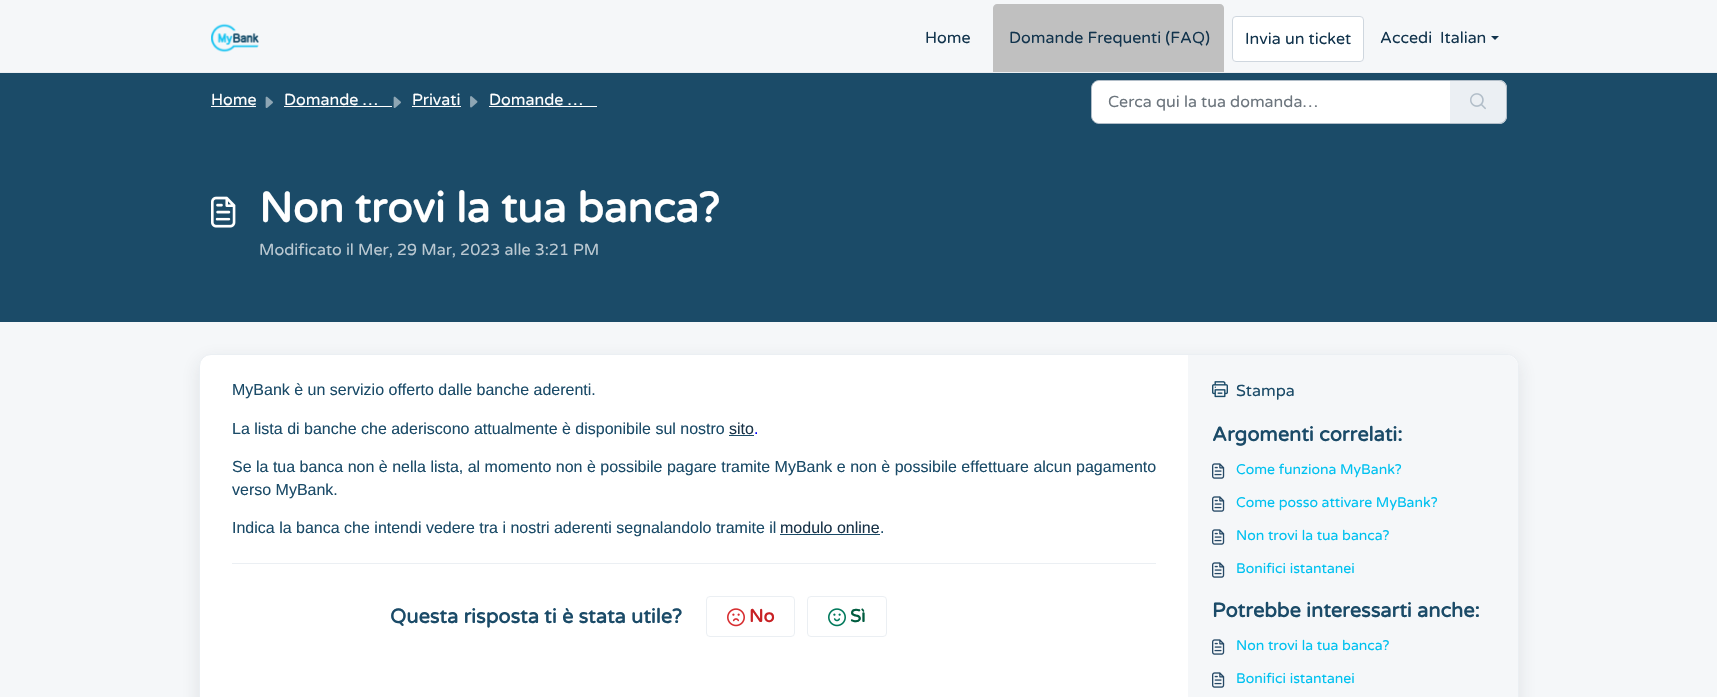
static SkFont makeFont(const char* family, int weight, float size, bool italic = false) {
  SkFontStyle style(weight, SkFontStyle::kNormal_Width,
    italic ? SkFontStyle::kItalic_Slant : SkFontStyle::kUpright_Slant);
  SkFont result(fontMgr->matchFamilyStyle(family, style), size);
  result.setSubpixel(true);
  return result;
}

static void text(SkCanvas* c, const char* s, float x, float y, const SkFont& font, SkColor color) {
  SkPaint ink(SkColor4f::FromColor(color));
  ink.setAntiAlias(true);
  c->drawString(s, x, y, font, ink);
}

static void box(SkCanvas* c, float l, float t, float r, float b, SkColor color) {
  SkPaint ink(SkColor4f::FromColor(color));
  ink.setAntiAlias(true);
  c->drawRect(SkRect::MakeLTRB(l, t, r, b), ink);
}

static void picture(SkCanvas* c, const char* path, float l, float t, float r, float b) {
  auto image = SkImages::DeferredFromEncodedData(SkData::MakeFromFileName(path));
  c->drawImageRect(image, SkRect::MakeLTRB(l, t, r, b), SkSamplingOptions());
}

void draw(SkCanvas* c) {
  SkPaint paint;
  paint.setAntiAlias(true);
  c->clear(0xfff5f7f9);
  box(c, 0, 72, 1717, 73, 0xffebeff3);
  picture(c, "img_01.png", 211, 23, 259, 53);
  SkFont face1 = makeFont("Varela Round", 400, 16);
  text(c, "Home", 925, 43, face1, 0xff12344d);
  paint.setColor(0xffc0c0c0);
  c->drawPath(SkPathBuilder().moveTo(997, 4).lineTo(1220, 4).cubicTo(1222, 4, 1224, 6, 1224, 8).lineTo(1224, 72).lineTo(993, 72).lineTo(993, 8).cubicTo(993, 6, 995, 4, 997, 4).close().detach(), paint);
  text(c, "Domande Frequenti (FAQ)", 1009, 43, face1, 0xff12344d);
  paint.setColor(0xffffffff);
  c->drawRoundRect(SkRect::MakeLTRB(1232.5f, 16.5f, 1363.5f, 61.5f), 3.5f, 3.5f, paint);
  paint.setStyle(SkPaint::kStroke_Style);
  paint.setStrokeWidth(1);
  paint.setColor(0xffcfd7df);
  c->drawRoundRect(SkRect::MakeLTRB(1232.5f, 16.5f, 1363.5f, 61.5f), 3.5f, 3.5f, paint);
  text(c, "Invia un ticket", 1245, 44, face1, 0xff12344d);
  text(c, "Accedi", 1380, 43, face1, 0xff12344d);
  text(c, "Italian", 1440, 43, face1, 0xff12344d);
  paint.setStyle(SkPaint::kFill_Style);
  paint.setColor(0xff12344d);
  c->drawPath(SkPathBuilder().moveTo(1491, 36).lineTo(1499, 36).lineTo(1495, 40).close().detach(), paint);
  box(c, 0, 73, 1717, 322, 0xff1b4b68);
  text(c, "Home", 211, 105, face1, 0xffffffff);
  box(c, 211, 106, 256, 107, 0xffffffff);
  picture(c, "img_02.png", 265, 96, 273, 108);
  text(c, "Domande …", 284, 105, face1, 0xffffffff);
  box(c, 284, 106, 392, 107, 0xffffffff);
  picture(c, "img_02.png", 393, 96, 401, 108);
  text(c, "Privati", 412, 105, face1, 0xffffffff);
  box(c, 412, 106, 461, 107, 0xffffffff);
  picture(c, "img_03.png", 470, 96, 478, 108);
  text(c, "Domande …", 489, 105, face1, 0xffffffff);
  box(c, 489, 106, 597, 107, 0xffffffff);
  paint.setColor(0xffffffff);
  c->drawPath(SkPathBuilder().moveTo(1099, 80.5f).lineTo(1450.5f, 80.5f).lineTo(1450.5f, 123.5f).lineTo(1099, 123.5f).cubicTo(1095, 123.5f, 1091.5f, 120, 1091.5f, 116).lineTo(1091.5f, 88).cubicTo(1091.5f, 84, 1095, 80.5f, 1099, 80.5f).close().detach(), paint);
  paint.setStyle(SkPaint::kStroke_Style);
  paint.setColor(0xffb1bdc8);
  c->drawPath(SkPathBuilder().moveTo(1099, 80.5f).lineTo(1450.5f, 80.5f).lineTo(1450.5f, 123.5f).lineTo(1099, 123.5f).cubicTo(1095, 123.5f, 1091.5f, 120, 1091.5f, 116).lineTo(1091.5f, 88).cubicTo(1091.5f, 84, 1095, 80.5f, 1099, 80.5f).close().detach(), paint);
  text(c, "Cerca qui la tua domanda…", 1108, 107, face1, 0xff6c757d);
  paint.setStyle(SkPaint::kFill_Style);
  paint.setColor(0xffebeff3);
  c->drawPath(SkPathBuilder().moveTo(1450, 80).lineTo(1499, 80).cubicTo(1503.5f, 80, 1507, 83.5f, 1507, 88).lineTo(1507, 116).cubicTo(1507, 120.5f, 1503.5f, 124, 1499, 124).lineTo(1450, 124).close().detach(), paint);
  paint.setColor(0xffb1bdc8);
  c->drawPath(SkPathBuilder(SkPathFillType::kEvenOdd).moveTo(1450, 80).lineTo(1499, 80).cubicTo(1503, 80, 1507, 84, 1507, 88).lineTo(1507, 116).cubicTo(1507, 120, 1503, 124, 1499, 124).lineTo(1450, 124).close().moveTo(1450, 81).lineTo(1499, 81).cubicTo(1503, 81, 1506, 84, 1506, 88).lineTo(1506, 116).cubicTo(1506, 120, 1503, 123, 1499, 123).lineTo(1450, 123).close().detach(), paint);
  picture(c, "img_04.png", 1470, 93, 1486, 110);
  picture(c, "img_05.png", 211, 196, 236, 228);
  SkFont face2 = makeFont("Varela Round", 700, 42);
  text(c, "Non trovi la tua banca?", 259, 222, face2, 0xffffffff);
  text(c, "Modificato il Mer, 29 Mar, 2023 alle 3:21 PM", 259, 255, face1, 0xffbbc9d2);
  paint.setColor(0x1a27313a);
  paint.setMaskFilter(SkMaskFilter::MakeBlur(kNormal_SkBlurStyle, 9.5f));
  c->drawRoundRect(SkRect::MakeLTRB(199, 360, 1519, 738), 12, 12, paint);
  paint.setMaskFilter(nullptr);
  paint.setColor(0xffffffff);
  c->drawRoundRect(SkRect::MakeLTRB(199.5f, 354.5f, 1518.5f, 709.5f), 11.5f, 11.5f, paint);
  paint.setStyle(SkPaint::kStroke_Style);
  paint.setColor(0xffebeff3);
  c->drawRoundRect(SkRect::MakeLTRB(199.5f, 354.5f, 1518.5f, 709.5f), 11.5f, 11.5f, paint);
  SkFont face3 = makeFont("Liberation Sans", 400, 16);
  text(c, "MyBank è un servizio offerto dalle banche aderenti.", 232, 395, face3, 0xff1b4b68);
  text(c, "La lista di banche che aderiscono attualmente è disponibile sul nostro", 232, 434, face3, 0xff1b4b68);
  text(c, "sito", 729, 434, face3, 0xff183247);
  text(c, ".", 754, 434, face3, 0xff0000ff);
  box(c, 729, 435, 754, 436, 0xff1b4b68);
  text(c, "Se la tua banca non è nella lista, al momento non è possibile pagare tramite MyBank e non è possibile effettuare alcun pagamento", 232, 472, face3, 0xff1b4b68);
  text(c, "verso MyBank.", 232, 495, face3, 0xff1b4b68);
  text(c, "Indica la banca che intendi vedere tra i nostri aderenti segnalandolo tramite il", 232, 533, face3, 0xff1b4b68);
  text(c, "modulo online", 780, 533, face3, 0xff183247);
  text(c, ".", 880, 533, face3, 0xff1b4b68);
  box(c, 780, 534, 880, 535, 0xff1b4b68);
  box(c, 232, 563, 1156, 564, 0xffebeff3);
  SkFont face4 = makeFont("Varela Round", 700, 20);
  text(c, "Questa risposta ti è stata utile?", 390, 623, face4, 0xff1b4b68);
  c->drawRoundRect(SkRect::MakeLTRB(706.5f, 596.5f, 794.5f, 636.5f), 3.5f, 3.5f, paint);
  picture(c, "img_06.png", 727, 608, 745, 627);
  SkFont face5 = makeFont("Varela Round", 700, 18);
  text(c, "No", 749, 622, face5, 0xffc82124);
  c->drawRoundRect(SkRect::MakeLTRB(807.5f, 596.5f, 886.5f, 636.5f), 3.5f, 3.5f, paint);
  picture(c, "img_07.png", 828, 608, 846, 627);
  text(c, "Sì", 850, 622, face5, 0xff005c3f);
  paint.setStyle(SkPaint::kFill_Style);
  paint.setColor(0xfff5f7f9);
  c->drawPath(SkPathBuilder().moveTo(1188, 355).lineTo(1506, 355).cubicTo(1512.5f, 355, 1518, 360.5f, 1518, 367).lineTo(1518, 697).cubicTo(1518, 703.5f, 1512.5f, 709, 1506, 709).lineTo(1188, 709).close().detach(), paint);
  picture(c, "img_08.png", 1212, 381, 1228, 398);
  text(c, "Stampa", 1236, 396, face1, 0xff1b4b68);
  text(c, "Argomenti correlati:", 1212, 441, face4, 0xff1b4b68);
  picture(c, "img_09.png", 1212, 463, 1225, 479);
  SkFont face6 = makeFont("Varela Round", 400, 14);
  text(c, "Come funziona MyBank?", 1236, 474, face6, 0xff00c1f0);
  picture(c, "img_09.png", 1212, 496, 1225, 512);
  text(c, "Come posso attivare MyBank?", 1236, 507, face6, 0xff00c1f0);
  picture(c, "img_09.png", 1212, 529, 1225, 545);
  text(c, "Non trovi la tua banca?", 1236, 540, face6, 0xff00c1f0);
  picture(c, "img_09.png", 1212, 562, 1225, 578);
  text(c, "Bonifici istantanei", 1236, 573, face6, 0xff00c1f0);
  text(c, "Potrebbe interessarti anche:", 1212, 617, face4, 0xff1b4b68);
  picture(c, "img_09.png", 1212, 639, 1225, 655);
  text(c, "Non trovi la tua banca?", 1236, 650, face6, 0xff00c1f0);
  picture(c, "img_09.png", 1212, 672, 1225, 688);
  text(c, "Bonifici istantanei", 1236, 683, face6, 0xff00c1f0);
}
